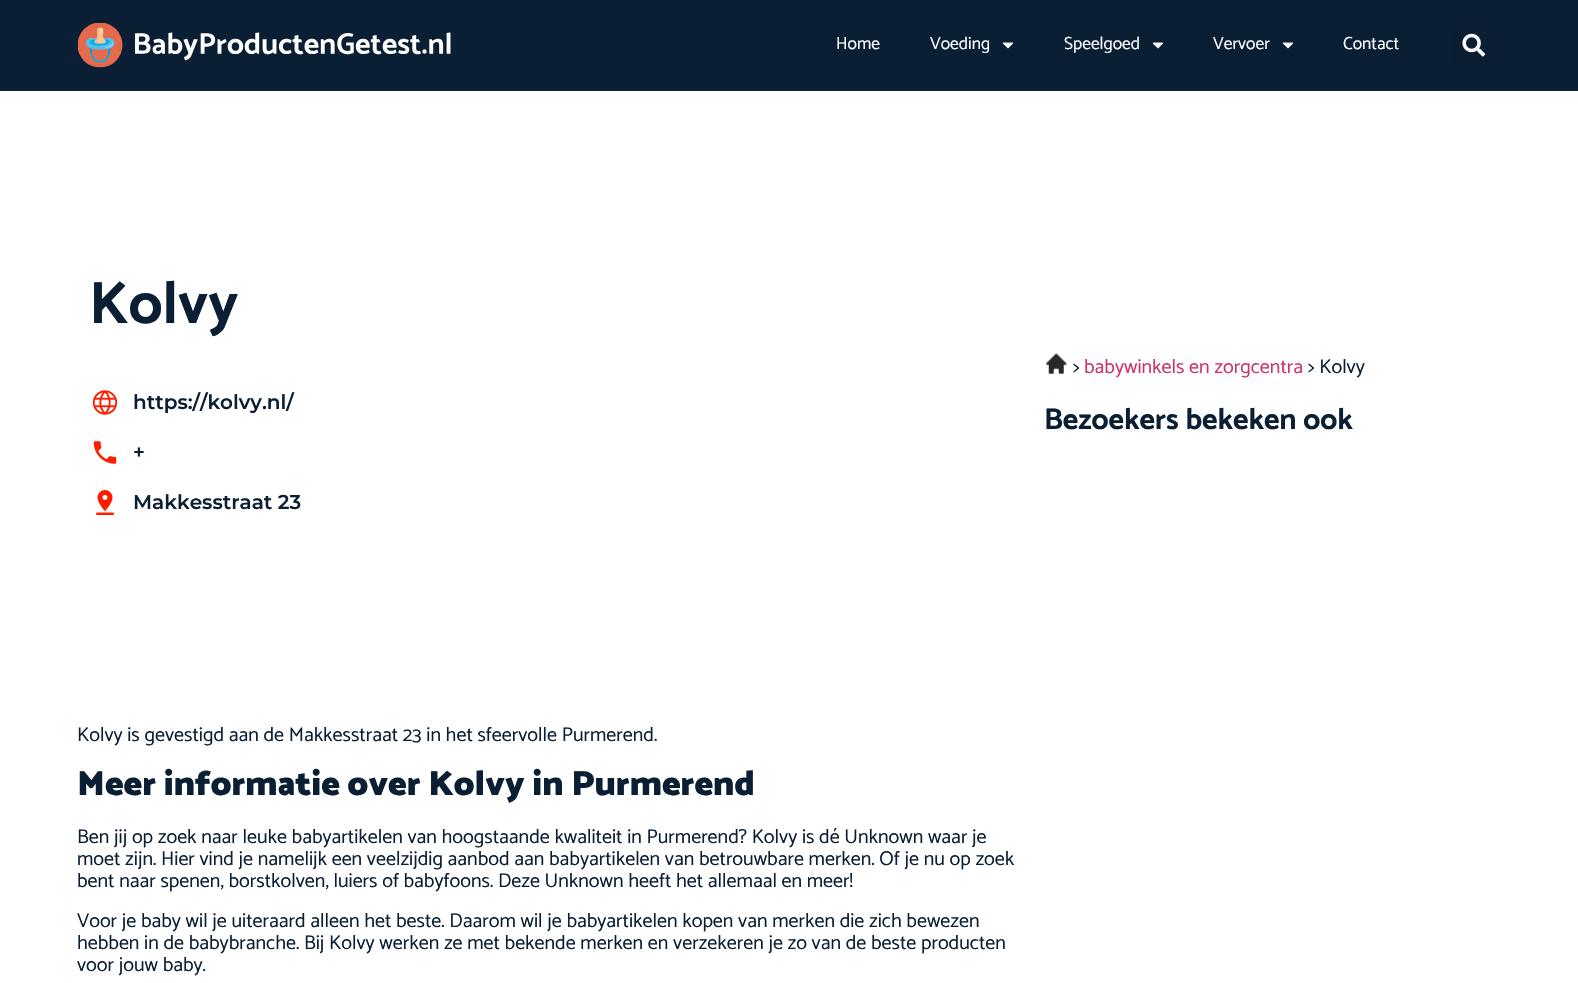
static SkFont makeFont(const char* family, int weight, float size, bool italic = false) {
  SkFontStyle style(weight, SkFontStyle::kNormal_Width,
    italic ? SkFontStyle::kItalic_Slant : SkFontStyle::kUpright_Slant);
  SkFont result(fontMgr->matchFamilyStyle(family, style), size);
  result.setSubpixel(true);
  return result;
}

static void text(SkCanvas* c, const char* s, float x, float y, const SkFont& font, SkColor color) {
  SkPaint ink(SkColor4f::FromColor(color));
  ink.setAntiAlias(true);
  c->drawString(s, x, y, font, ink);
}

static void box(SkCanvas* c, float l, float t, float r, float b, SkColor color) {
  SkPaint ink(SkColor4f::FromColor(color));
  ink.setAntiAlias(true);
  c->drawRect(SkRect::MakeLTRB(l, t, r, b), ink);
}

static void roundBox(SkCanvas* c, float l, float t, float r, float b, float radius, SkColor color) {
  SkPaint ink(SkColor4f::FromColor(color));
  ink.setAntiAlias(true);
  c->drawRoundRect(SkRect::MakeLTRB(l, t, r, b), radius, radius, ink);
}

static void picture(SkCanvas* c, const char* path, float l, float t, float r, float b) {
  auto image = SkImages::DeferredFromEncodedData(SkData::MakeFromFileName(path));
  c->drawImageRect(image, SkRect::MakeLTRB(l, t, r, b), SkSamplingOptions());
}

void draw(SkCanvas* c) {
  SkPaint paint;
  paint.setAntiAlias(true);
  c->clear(0xffffffff);
  box(c, 0, 0, 1578, 91, 0xff0b1f34);
  picture(c, "img_01.png", 78, 23, 451, 68);
  SkFont face1 = makeFont("Catamaran", 400, 17.5f);
  text(c, "Home", 836, 49, face1, 0xffffffff);
  text(c, "Voeding", 930, 49, face1, 0xffffffff);
  picture(c, "img_02.png", 1002, 42, 1013, 49);
  text(c, "Speelgoed", 1064, 49, face1, 0xffffffff);
  picture(c, "img_02.png", 1152, 42, 1163, 49);
  text(c, "Vervoer", 1213, 49, face1, 0xffffffff);
  picture(c, "img_02.png", 1282, 42, 1293, 49);
  text(c, "Contact", 1343, 49, face1, 0xffffffff);
  roundBox(c, 1453, 25, 1494, 66, 4, 0xff0a1d31);
  picture(c, "img_03.png", 1462, 33, 1486, 57);
  SkFont face2 = makeFont("Catamaran", 700, 60);
  text(c, "Kolvy", 89, 323, face2, 0xff0b1f34);
  picture(c, "img_04.png", 92, 390, 118, 415);
  SkFont face3 = makeFont("Montserrat", 600, 20);
  text(c, "https://kolvy.nl/", 133, 409, face3, 0xff0b1f34);
  picture(c, "img_05.png", 93, 441, 117, 464);
  text(c, "+", 133, 459, face3, 0xff0b1f34);
  picture(c, "img_06.png", 96, 490, 114, 515);
  text(c, "Makkesstraat 23", 133, 509, face3, 0xff0b1f34);
  SkFont face4 = makeFont("Catamaran", 400, 20);
  text(c, "Kolvy is gevestigd aan de Makkesstraat 23 in het sfeervolle Purmerend.", 77, 741, face4, 0xff0b1f34);
  SkFont face5 = makeFont("Catamaran", 900, 35);
  text(c, "Meer informatie over Kolvy in Purmerend", 77, 795, face5, 0xff0b1f34);
  text(c, "Ben jij op zoek naar leuke babyartikelen van hoogstaande kwaliteit in Purmerend? Kolvy is dé Unknown waar je", 77, 843, face4, 0xff0b1f34);
  text(c, "moet zijn. Hier vind je namelijk een veelzijdig aanbod aan babyartikelen van betrouwbare merken. Of je nu op zoek", 77, 865, face4, 0xff0b1f34);
  text(c, "bent naar spenen, borstkolven, luiers of babyfoons. Deze Unknown heeft het allemaal en meer!", 77, 887, face4, 0xff0b1f34);
  text(c, "Voor je baby wil je uiteraard alleen het beste. Daarom wil je babyartikelen kopen van merken die zich bewezen", 77, 927, face4, 0xff0b1f34);
  text(c, "hebben in de babybranche. Bij Kolvy werken ze met bekende merken en verzekeren je zo van de beste producten", 77, 949, face4, 0xff0b1f34);
  text(c, "voor jouw baby.", 77, 971, face4, 0xff0b1f34);
  picture(c, "img_07.png", 1046, 353, 1067, 374);
  text(c, ">", 1073, 373, face4, 0xff0b1f34);
  text(c, "babywinkels en zorgcentra", 1084, 373, face4, 0xffcc3366);
  text(c, "> Kolvy", 1308, 373, face4, 0xff0b1f34);
  SkFont face6 = makeFont("Catamaran", 700, 30);
  text(c, "Bezoekers bekeken ook", 1044, 429, face6, 0xff0b1f34);
}
